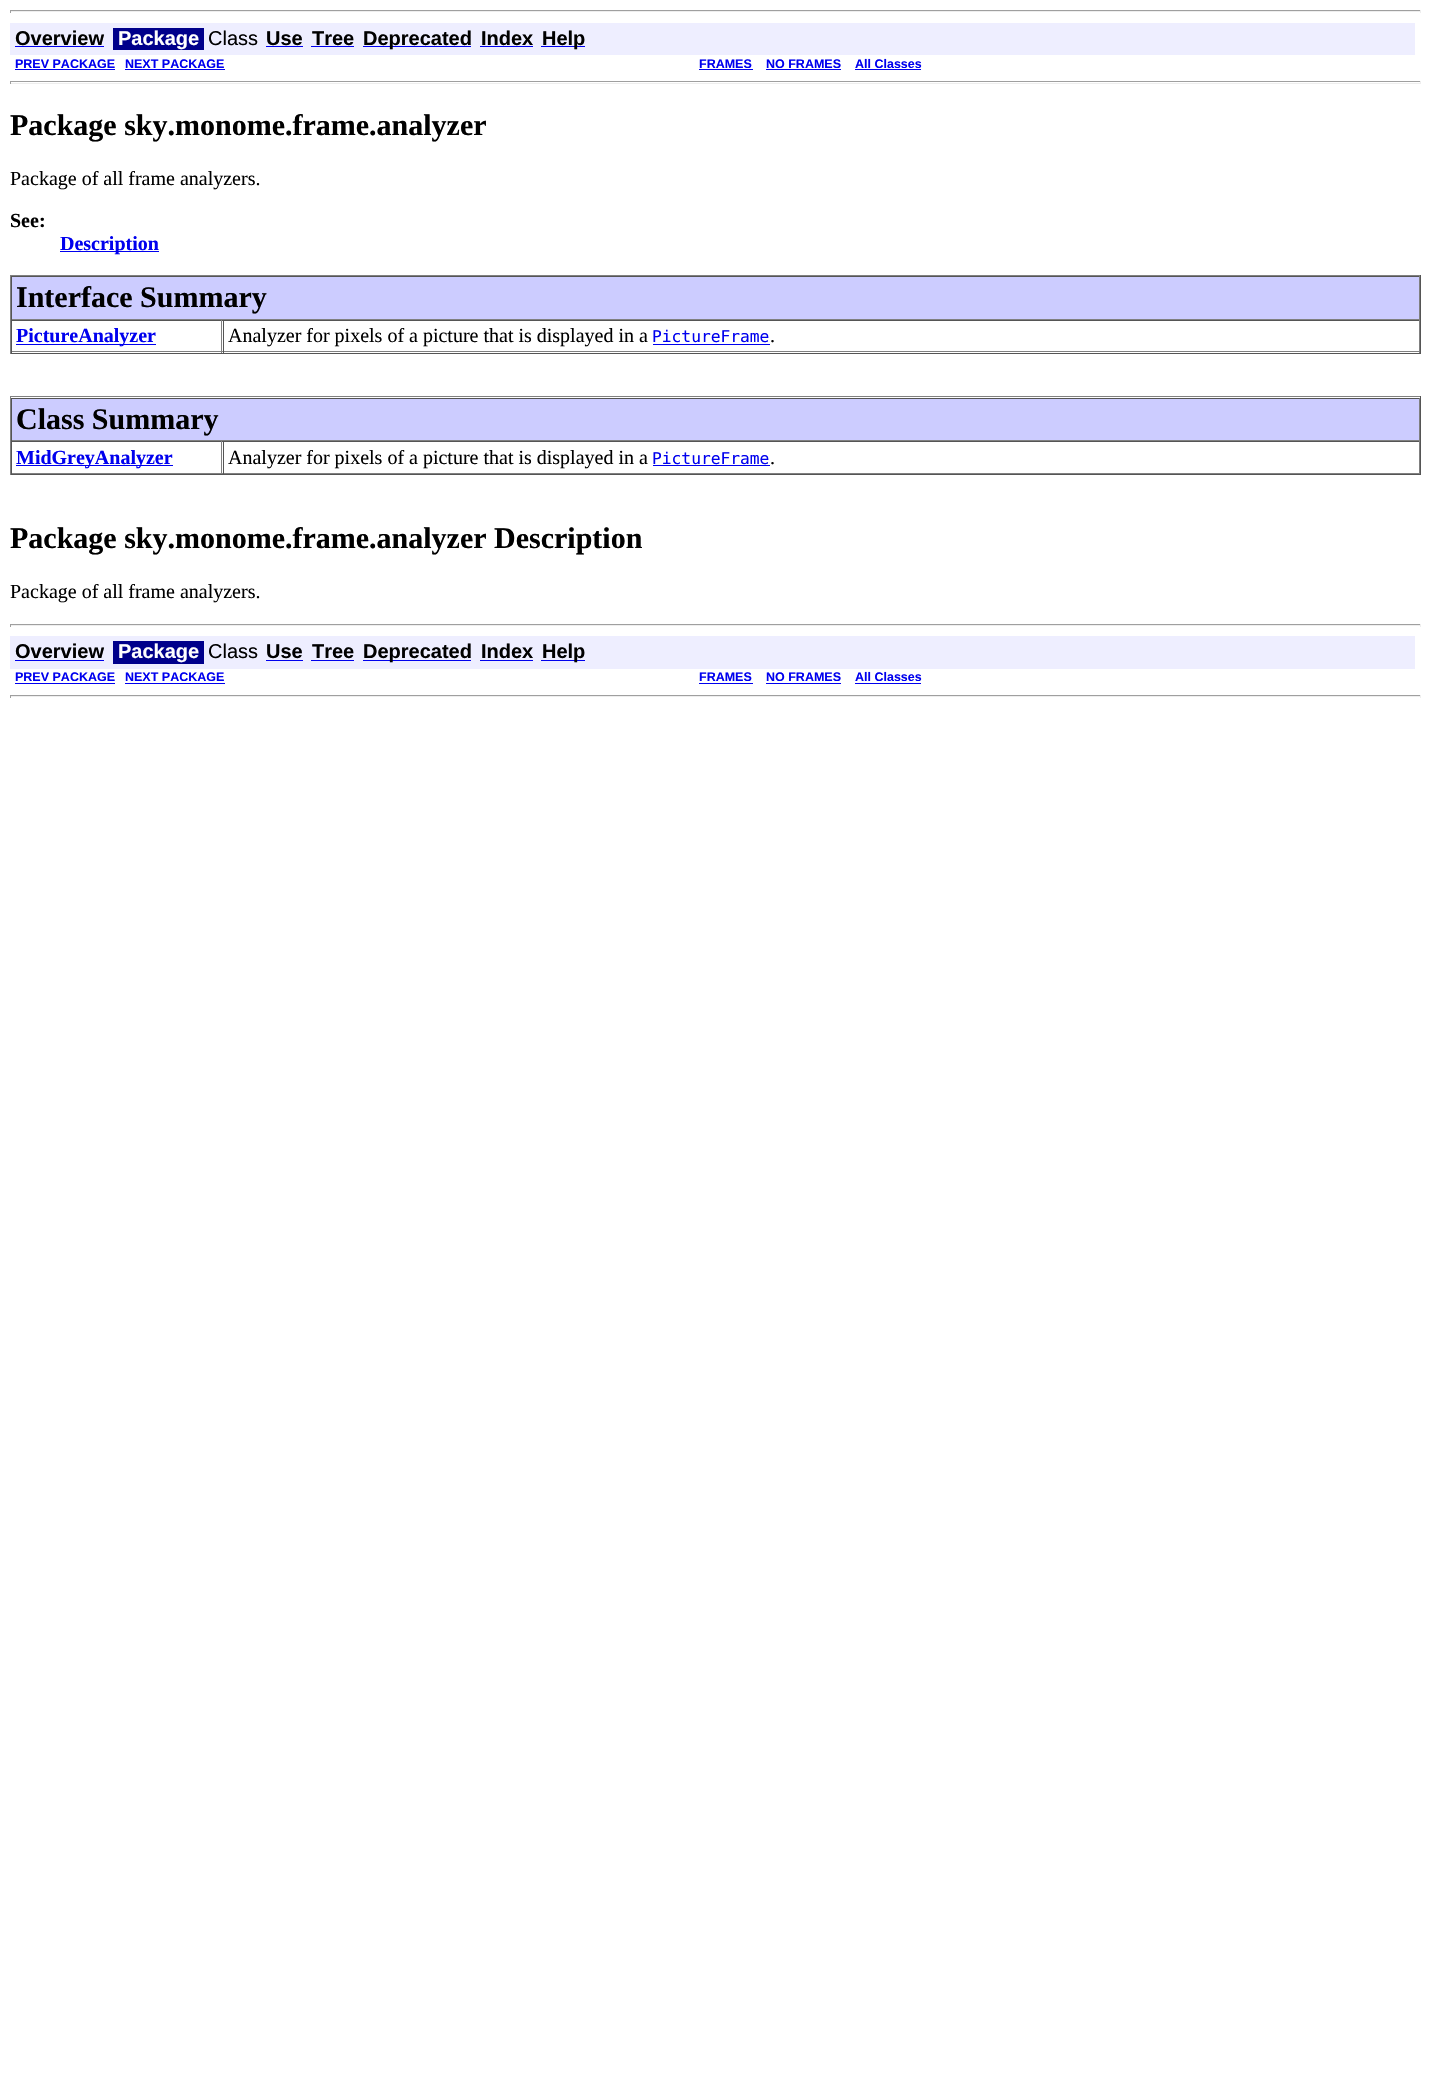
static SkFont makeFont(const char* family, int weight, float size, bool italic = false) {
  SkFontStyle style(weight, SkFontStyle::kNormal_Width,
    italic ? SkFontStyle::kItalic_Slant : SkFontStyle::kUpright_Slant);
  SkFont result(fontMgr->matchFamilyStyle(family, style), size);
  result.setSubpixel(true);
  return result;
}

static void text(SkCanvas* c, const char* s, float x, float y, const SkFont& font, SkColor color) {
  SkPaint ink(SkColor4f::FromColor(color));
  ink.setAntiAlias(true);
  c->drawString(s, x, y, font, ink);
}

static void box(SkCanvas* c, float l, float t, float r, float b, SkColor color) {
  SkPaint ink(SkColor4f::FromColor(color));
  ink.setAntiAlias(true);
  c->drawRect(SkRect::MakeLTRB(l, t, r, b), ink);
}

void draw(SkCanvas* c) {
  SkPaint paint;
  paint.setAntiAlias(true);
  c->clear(0xffffffff);
  box(c, 10, 10, 1421, 11, 0xff9f9f9f);
  box(c, 1420, 10, 1421, 13, 0xffeeeeee);
  box(c, 10, 11, 1421, 12, 0xffeeeeee);
  box(c, 10, 10, 11, 13, 0xff9f9f9f);
  box(c, 10, 23, 1415, 55, 0xffeeeeff);
  SkFont face1 = makeFont("Liberation Sans", 700, 20);
  text(c, "Overview", 15, 45, face1, 0xff000000);
  box(c, 15, 46, 104, 47, 0xff0000ee);
  box(c, 113, 28, 204, 50, 0xff00008b);
  text(c, "Package", 118, 45, face1, 0xffffffff);
  SkFont face2 = makeFont("Liberation Sans", 400, 20);
  text(c, "Class", 208, 45, face2, 0xff000000);
  text(c, "Use", 266, 45, face1, 0xff000000);
  box(c, 266, 46, 303, 47, 0xff0000ee);
  text(c, "Tree", 312, 45, face1, 0xff000000);
  box(c, 311, 46, 354, 47, 0xff0000ee);
  box(c, 363, 46, 471, 47, 0xff0000ee);
  text(c, "Deprecated", 363, 45, face1, 0xff000000);
  text(c, "Index", 481, 45, face1, 0xff000000);
  box(c, 480, 46, 533, 47, 0xff0000ee);
  box(c, 541, 46, 585, 47, 0xff0000ee);
  text(c, "Help", 542, 45, face1, 0xff000000);
  SkFont face3 = makeFont("Liberation Sans", 700, 12.5f);
  text(c, "PREV PACKAGE", 15, 68, face3, 0xff0000ee);
  box(c, 15, 69, 115, 70, 0xff0000ee);
  text(c, "NEXT PACKAGE", 125, 68, face3, 0xff0000ee);
  box(c, 125, 69, 225, 70, 0xff0000ee);
  text(c, "FRAMES", 699, 68, face3, 0xff0000ee);
  box(c, 699, 69, 753, 70, 0xff0000ee);
  text(c, "NO FRAMES", 766, 68, face3, 0xff0000ee);
  box(c, 766, 69, 841, 70, 0xff0000ee);
  text(c, "All Classes", 855, 68, face3, 0xff0000ee);
  box(c, 855, 69, 921, 70, 0xff0000ee);
  box(c, 10, 81, 1421, 82, 0xff9f9f9f);
  box(c, 1420, 81, 1421, 84, 0xffeeeeee);
  box(c, 10, 83, 1421, 84, 0xffeeeeee);
  box(c, 10, 81, 11, 84, 0xff9f9f9f);
  SkFont face4 = makeFont("Liberation Serif", 700, 30);
  text(c, "Package sky.monome.frame.analyzer", 10, 135, face4, 0xff000000);
  SkFont face5 = makeFont("Liberation Serif", 400, 20);
  text(c, "Package of all frame analyzers.", 10, 185, face5, 0xff000000);
  SkFont face6 = makeFont("Liberation Serif", 700, 20);
  text(c, "See:", 10, 227, face6, 0xff000000);
  box(c, 60, 251, 159, 252, 0xff0000ee);
  text(c, "Description", 60, 250, face6, 0xff0000ee);
  box(c, 10, 275, 1421, 276, 0xff808080);
  box(c, 1420, 275, 1421, 354, 0xff555555);
  box(c, 10, 353, 1421, 354, 0xff555555);
  box(c, 10, 275, 11, 354, 0xff808080);
  box(c, 12, 277, 1419, 319, 0xffccccff);
  box(c, 11, 276, 1420, 277, 0xff555555);
  box(c, 1419, 276, 1420, 320, 0xff808080);
  box(c, 11, 319, 1420, 320, 0xff808080);
  box(c, 11, 276, 12, 320, 0xff555555);
  text(c, "Interface Summary", 16, 307, face4, 0xff000000);
  box(c, 11, 320, 1420, 321, 0xff555555);
  box(c, 221, 320, 222, 353, 0xff808080);
  box(c, 11, 351, 223, 352, 0xff808080);
  box(c, 11, 320, 12, 353, 0xff555555);
  box(c, 16, 344, 156, 345, 0xff0000ee);
  text(c, "PictureAnalyzer", 16, 342, face6, 0xff0000ee);
  box(c, 1419, 320, 1420, 353, 0xff808080);
  box(c, 223, 351, 1420, 352, 0xff808080);
  box(c, 223, 320, 224, 353, 0xff555555);
  text(c, "Analyzer for pixels of a picture that is displayed in a", 228, 342, face5, 0xff000000);
  SkFont face7 = makeFont("DejaVu Sans Mono", 400, 16.25f);
  text(c, "PictureFrame", 652, 342, face7, 0xff0000ee);
  box(c, 653, 344, 770, 345, 0xff0000ee);
  text(c, ".", 770, 342, face5, 0xff000000);
  box(c, 10, 396, 1421, 397, 0xff808080);
  box(c, 1420, 396, 1421, 475, 0xff555555);
  box(c, 10, 474, 1421, 475, 0xff555555);
  box(c, 10, 396, 11, 475, 0xff808080);
  box(c, 12, 399, 1419, 440, 0xffccccff);
  box(c, 11, 398, 1420, 399, 0xff555555);
  box(c, 1419, 398, 1420, 441, 0xff808080);
  box(c, 11, 440, 1420, 441, 0xff808080);
  box(c, 11, 398, 12, 441, 0xff555555);
  text(c, "Class Summary", 16, 429, face4, 0xff000000);
  box(c, 11, 441, 1420, 442, 0xff555555);
  box(c, 221, 441, 222, 474, 0xff808080);
  box(c, 11, 473, 223, 474, 0xff808080);
  box(c, 11, 441, 12, 474, 0xff555555);
  box(c, 16, 465, 173, 466, 0xff0000ee);
  text(c, "MidGreyAnalyzer", 16, 464, face6, 0xff0000ee);
  box(c, 1419, 441, 1420, 474, 0xff808080);
  box(c, 223, 473, 1420, 474, 0xff808080);
  box(c, 223, 441, 224, 474, 0xff555555);
  text(c, "Analyzer for pixels of a picture that is displayed in a", 228, 464, face5, 0xff000000);
  text(c, "PictureFrame", 652, 464, face7, 0xff0000ee);
  box(c, 653, 465, 770, 466, 0xff0000ee);
  text(c, ".", 770, 464, face5, 0xff000000);
  text(c, "Package sky.monome.frame.analyzer Description", 10, 548, face4, 0xff000000);
  text(c, "Package of all frame analyzers.", 10, 598, face5, 0xff000000);
  box(c, 10, 624, 1421, 625, 0xff9f9f9f);
  box(c, 1420, 624, 1421, 627, 0xffeeeeee);
  box(c, 10, 625, 1421, 626, 0xffeeeeee);
  box(c, 10, 624, 11, 627, 0xff9f9f9f);
  box(c, 10, 636, 1415, 669, 0xffeeeeff);
  text(c, "Overview", 15, 658, face1, 0xff000000);
  box(c, 15, 660, 104, 661, 0xff0000ee);
  box(c, 113, 641, 204, 664, 0xff00008b);
  text(c, "Package", 118, 658, face1, 0xffffffff);
  text(c, "Class", 208, 658, face2, 0xff000000);
  text(c, "Use", 266, 658, face1, 0xff000000);
  box(c, 266, 660, 303, 661, 0xff0000ee);
  text(c, "Tree", 312, 658, face1, 0xff000000);
  box(c, 311, 660, 354, 661, 0xff0000ee);
  box(c, 363, 660, 471, 661, 0xff0000ee);
  text(c, "Deprecated", 363, 658, face1, 0xff000000);
  text(c, "Index", 481, 658, face1, 0xff000000);
  box(c, 480, 660, 533, 661, 0xff0000ee);
  box(c, 541, 660, 585, 661, 0xff0000ee);
  text(c, "Help", 542, 658, face1, 0xff000000);
  text(c, "PREV PACKAGE", 15, 681, face3, 0xff0000ee);
  box(c, 15, 683, 115, 684, 0xff0000ee);
  text(c, "NEXT PACKAGE", 125, 681, face3, 0xff0000ee);
  box(c, 125, 683, 225, 684, 0xff0000ee);
  text(c, "FRAMES", 699, 681, face3, 0xff0000ee);
  box(c, 699, 683, 753, 684, 0xff0000ee);
  text(c, "NO FRAMES", 766, 681, face3, 0xff0000ee);
  box(c, 766, 683, 841, 684, 0xff0000ee);
  text(c, "All Classes", 855, 681, face3, 0xff0000ee);
  box(c, 855, 683, 921, 684, 0xff0000ee);
  box(c, 10, 695, 1421, 696, 0xff9f9f9f);
  box(c, 1420, 695, 1421, 698, 0xffeeeeee);
  box(c, 10, 696, 1421, 697, 0xffeeeeee);
  box(c, 10, 695, 11, 698, 0xff9f9f9f);
}
